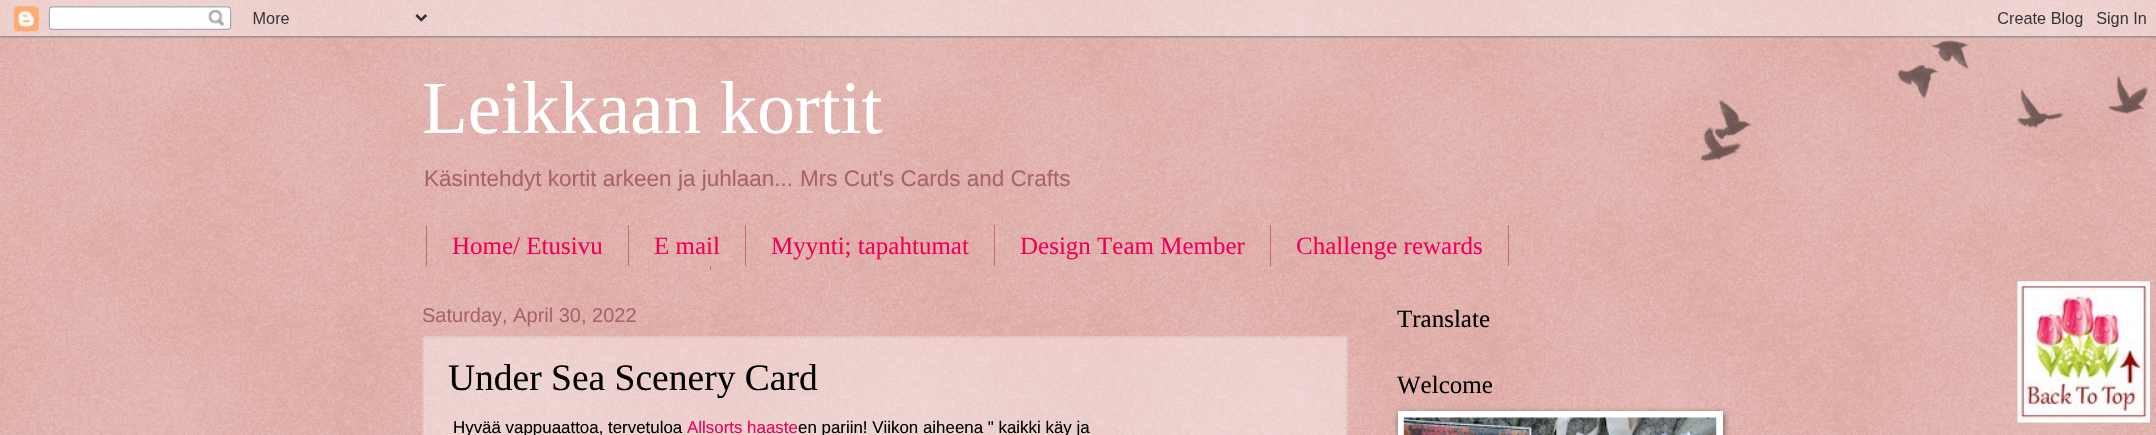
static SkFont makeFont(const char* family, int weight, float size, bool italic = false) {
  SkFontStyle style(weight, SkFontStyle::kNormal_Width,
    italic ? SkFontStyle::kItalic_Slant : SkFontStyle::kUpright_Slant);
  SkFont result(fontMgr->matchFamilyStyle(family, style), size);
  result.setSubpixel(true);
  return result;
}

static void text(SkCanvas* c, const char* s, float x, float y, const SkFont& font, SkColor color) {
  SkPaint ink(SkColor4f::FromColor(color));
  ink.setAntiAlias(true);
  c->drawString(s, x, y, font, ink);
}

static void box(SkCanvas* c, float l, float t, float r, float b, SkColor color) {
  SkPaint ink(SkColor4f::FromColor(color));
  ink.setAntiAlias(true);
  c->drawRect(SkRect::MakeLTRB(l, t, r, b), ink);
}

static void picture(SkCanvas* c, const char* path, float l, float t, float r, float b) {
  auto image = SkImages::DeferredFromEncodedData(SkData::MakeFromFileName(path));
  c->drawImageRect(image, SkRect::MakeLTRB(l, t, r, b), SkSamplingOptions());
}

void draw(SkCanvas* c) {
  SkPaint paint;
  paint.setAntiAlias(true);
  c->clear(0xffc66c64);
  picture(c, "img_01.png", 0, 0, 2156, 435);
  picture(c, "img_02.png", 0, 0, 2156, 38);
  SkFont face1 = makeFont("Liberation Serif", 400, 75);
  text(c, "Leikkaan kortit", 422, 133, face1, 0xffffffff);
  SkFont face2 = makeFont("Liberation Sans", 400, 22.5f);
  text(c, "Käsintehdyt kortit arkeen ja juhlaan...", 424, 186, face2, 0xffa8626b);
  text(c, "Mrs Cut's Cards and Crafts", 800, 186, face2, 0xffa8626b);
  box(c, 628, 225, 629, 266, 0xffc66c64);
  box(c, 426, 225, 427, 266, 0xffc66c64);
  SkFont face3 = makeFont("Liberation Serif", 400, 25);
  text(c, "Home/ Etusivu", 452, 254, face3, 0xfff0005c);
  box(c, 745, 225, 746, 266, 0xffc66c64);
  text(c, "E mail", 654, 254, face3, 0xfff0005c);
  box(c, 994, 225, 995, 266, 0xffc66c64);
  text(c, "Myynti; tapahtumat", 771, 254, face3, 0xfff0005c);
  box(c, 1270, 225, 1271, 266, 0xffc66c64);
  text(c, "Design Team Member", 1020, 254, face3, 0xfff0005c);
  box(c, 1508, 225, 1509, 266, 0xffc66c64);
  text(c, "Challenge rewards", 1296, 254, face3, 0xfff0005c);
  box(c, 710, 266, 711, 270, 0xffc66c64);
  SkFont face4 = makeFont("Liberation Sans", 400, 20);
  text(c, "Saturday, April 30, 2022", 422, 322, face4, 0xffa8626b);
  box(c, 422, 336, 1348, 435, 0x66ffffff);
  paint.setStyle(SkPaint::kStroke_Style);
  paint.setStrokeWidth(1.2f);
  paint.setColor(0xffd1a4a2);
  paint.setPathEffect(SkDashPathEffect::Make({{1.25f, 1.25f}}, 0));
  c->drawPath(SkPathBuilder().moveTo(422.5f, 337).lineTo(1347.5f, 337).detach(), paint);
  paint.setPathEffect(nullptr);
  paint.setPathEffect(SkDashPathEffect::Make({{1.25f, 1.25f}}, 0));
  c->drawPath(SkPathBuilder().moveTo(1347, 336).lineTo(1347, 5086).detach(), paint);
  paint.setPathEffect(nullptr);
  paint.setPathEffect(SkDashPathEffect::Make({{1.25f, 1.25f}}, 0));
  c->drawPath(SkPathBuilder().moveTo(423, 336).lineTo(423, 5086).detach(), paint);
  paint.setPathEffect(nullptr);
  SkFont face5 = makeFont("Liberation Serif", 400, 37.5f);
  text(c, "Under Sea Scenery Card", 448, 390, face5, 0xff000000);
  SkFont face6 = makeFont("Liberation Sans", 400, 16.9f);
  text(c, "Hyvää vappuaattoa, tervetuloa", 453, 433, face6, 0xff000000);
  text(c, "Allsorts haaste", 687, 433, face6, 0xfff0005c);
  text(c, "en pariin! Viikon aiheena \" kaikki käy ja", 798, 433, face6, 0xff000000);
  text(c, "Translate", 1397, 327, face3, 0xff000000);
  picture(c, "img_03.png", 2017, 281, 2150, 423);
  text(c, "Welcome", 1397, 393, face3, 0xff000000);
  paint.setStyle(SkPaint::kFill_Style);
  paint.setColor(0x80000000);
  paint.setMaskFilter(SkMaskFilter::MakeBlur(kNormal_SkBlurStyle, 3));
  c->drawRect(SkRect::MakeLTRB(1399, 413, 1724, 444), paint);
  paint.setMaskFilter(nullptr);
  box(c, 1398, 411, 1723, 435, 0xffffffff);
  picture(c, "img_04.png", 1403, 417, 1717, 435);
  picture(c, "img_05.png", 1700, 40, 2149, 162);
}
